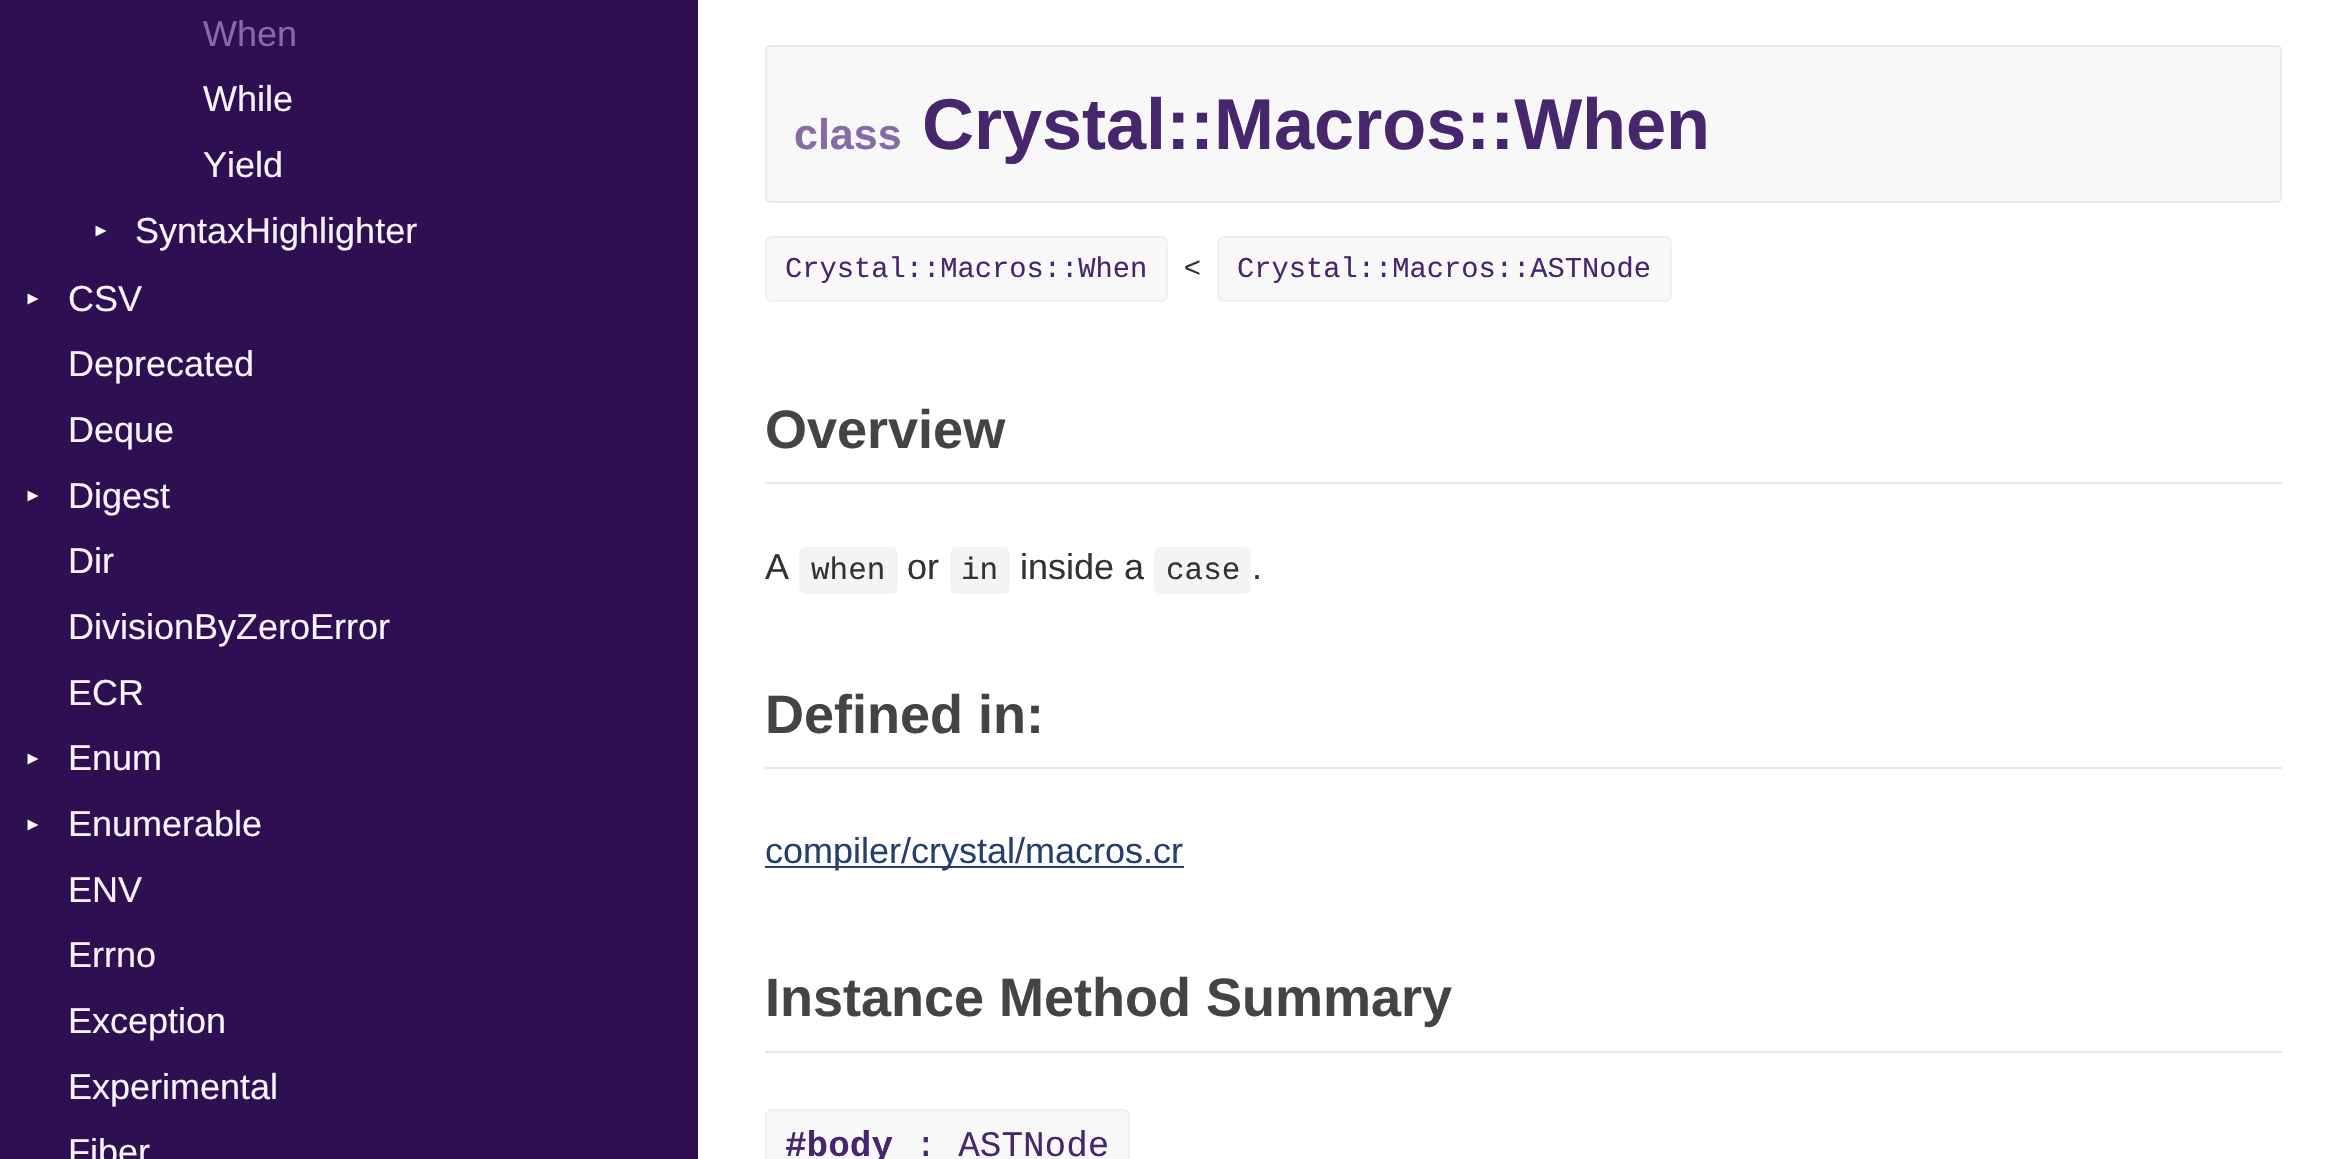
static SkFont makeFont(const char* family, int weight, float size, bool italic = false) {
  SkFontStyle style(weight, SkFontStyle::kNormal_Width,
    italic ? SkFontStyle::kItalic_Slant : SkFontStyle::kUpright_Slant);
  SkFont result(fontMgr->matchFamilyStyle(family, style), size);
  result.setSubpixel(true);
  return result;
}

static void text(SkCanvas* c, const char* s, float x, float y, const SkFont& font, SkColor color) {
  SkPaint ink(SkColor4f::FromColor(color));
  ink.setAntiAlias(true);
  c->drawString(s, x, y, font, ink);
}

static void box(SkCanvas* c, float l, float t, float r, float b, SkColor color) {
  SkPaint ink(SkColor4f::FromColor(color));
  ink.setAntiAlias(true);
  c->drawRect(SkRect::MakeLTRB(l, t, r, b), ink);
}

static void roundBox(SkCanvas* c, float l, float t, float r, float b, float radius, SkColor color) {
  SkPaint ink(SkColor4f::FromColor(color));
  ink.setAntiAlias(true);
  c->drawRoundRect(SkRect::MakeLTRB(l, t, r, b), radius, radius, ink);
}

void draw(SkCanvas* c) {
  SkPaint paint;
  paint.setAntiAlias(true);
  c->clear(0xffffffff);
  box(c, 0, 0, 698, 1159, 0xff2e1052);
  SkFont face1 = makeFont("Liberation Sans", 400, 36);
  text(c, "When", 203, 46, face1, 0xff866ba6);
  text(c, "While", 203, 111, face1, 0xfff8f4fd);
  text(c, "Yield", 203, 177, face1, 0xfff8f4fd);
  SkFont face2 = makeFont("Liberation Sans", 400, 18);
  c->save();
  c->rotate(-90, 106, 240);
  text(c, "▼", 106, 240, face2, 0xffffffff);
  c->restore();
  text(c, "SyntaxHighlighter", 135, 243, face1, 0xfff8f4fd);
  c->save();
  c->rotate(-90, 38, 308);
  text(c, "▼", 38, 308, face2, 0xffffffff);
  c->restore();
  text(c, "CSV", 68, 311, face1, 0xfff8f4fd);
  text(c, "Deprecated", 68, 376, face1, 0xfff8f4fd);
  text(c, "Deque", 68, 442, face1, 0xfff8f4fd);
  c->save();
  c->rotate(-90, 38, 505);
  text(c, "▼", 38, 505, face2, 0xffffffff);
  c->restore();
  text(c, "Digest", 68, 508, face1, 0xfff8f4fd);
  text(c, "Dir", 68, 573, face1, 0xfff8f4fd);
  text(c, "DivisionByZeroError", 68, 639, face1, 0xfff8f4fd);
  text(c, "ECR", 68, 705, face1, 0xfff8f4fd);
  c->save();
  c->rotate(-90, 38, 768);
  text(c, "▼", 38, 768, face2, 0xffffffff);
  c->restore();
  text(c, "Enum", 68, 770, face1, 0xfff8f4fd);
  c->save();
  c->rotate(-90, 38, 834);
  text(c, "▼", 38, 834, face2, 0xffffffff);
  c->restore();
  text(c, "Enumerable", 68, 836, face1, 0xfff8f4fd);
  text(c, "ENV", 68, 902, face1, 0xfff8f4fd);
  text(c, "Errno", 68, 967, face1, 0xfff8f4fd);
  text(c, "Exception", 68, 1033, face1, 0xfff8f4fd);
  text(c, "Experimental", 68, 1099, face1, 0xfff8f4fd);
  text(c, "Fiber", 68, 1164, face1, 0xfff8f4fd);
  paint.setColor(0xfff8f8f8);
  c->drawRoundRect(SkRect::MakeLTRB(766, 46, 2281, 202), 4, 4, paint);
  paint.setStyle(SkPaint::kStroke_Style);
  paint.setStrokeWidth(2);
  paint.setColor(0xffebebeb);
  c->drawRoundRect(SkRect::MakeLTRB(766, 46, 2281, 202), 4, 4, paint);
  SkFont face3 = makeFont("Liberation Sans", 700, 43);
  text(c, "class", 794, 149, face3, 0xff866ba6);
  SkFont face4 = makeFont("Liberation Sans", 700, 72);
  text(c, "Crystal::Macros::When", 922, 149, face4, 0xff47266e);
  paint.setStyle(SkPaint::kFill_Style);
  paint.setColor(0xfff8f8f8);
  c->drawRoundRect(SkRect::MakeLTRB(766, 237, 1167, 301), 6, 6, paint);
  paint.setStyle(SkPaint::kStroke_Style);
  paint.setColor(0xfff0f0f0);
  c->drawRoundRect(SkRect::MakeLTRB(766, 237, 1167, 301), 6, 6, paint);
  SkFont face5 = makeFont("Liberation Mono", 400, 28.75f);
  text(c, "Crystal::Macros::When", 785, 277, face5, 0xff47266e);
  SkFont face6 = makeFont("Liberation Sans", 400, 28.75f);
  text(c, "<", 1184, 277, face6, 0xff333333);
  paint.setStyle(SkPaint::kFill_Style);
  paint.setColor(0xfff8f8f8);
  c->drawRoundRect(SkRect::MakeLTRB(1218, 237, 1671, 301), 6, 6, paint);
  paint.setStyle(SkPaint::kStroke_Style);
  paint.setColor(0xfff0f0f0);
  c->drawRoundRect(SkRect::MakeLTRB(1218, 237, 1671, 301), 6, 6, paint);
  text(c, "Crystal::Macros::ASTNode", 1237, 277, face5, 0xff47266e);
  box(c, 765, 482, 2282, 484, 0xffe6e6e6);
  SkFont face7 = makeFont("Liberation Sans", 700, 54);
  text(c, "Overview", 765, 448, face7, 0xff444444);
  text(c, "A", 765, 579, face1, 0xff333333);
  roundBox(c, 799, 547, 898, 594, 7, 0xfff4f4f4);
  SkFont face8 = makeFont("Liberation Mono", 400, 31);
  text(c, "when", 811, 579, face8, 0xff333333);
  text(c, "or", 907, 579, face1, 0xff333333);
  roundBox(c, 950, 547, 1010, 594, 7, 0xfff4f4f4);
  text(c, "in", 961, 579, face8, 0xff333333);
  text(c, "inside a", 1020, 579, face1, 0xff333333);
  roundBox(c, 1154, 547, 1251, 594, 7, 0xfff4f4f4);
  text(c, "case", 1166, 579, face8, 0xff333333);
  text(c, ".", 1252, 579, face1, 0xff333333);
  box(c, 765, 767, 2282, 769, 0xffe6e6e6);
  text(c, "Defined in:", 765, 733, face7, 0xff444444);
  box(c, 765, 866, 1184, 868, 0xff263f6c);
  text(c, "compiler/crystal/macros.cr", 765, 863, face1, 0xff263f6c);
  box(c, 765, 1051, 2282, 1053, 0xffe6e6e6);
  text(c, "Instance Method Summary", 765, 1016, face7, 0xff444444);
  paint.setStyle(SkPaint::kFill_Style);
  paint.setColor(0xfff8f8f8);
  c->drawPath(SkPathBuilder().moveTo(772, 1109).lineTo(1123, 1109).cubicTo(1127, 1109, 1130, 1112, 1130, 1116).lineTo(1130, 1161).lineTo(765, 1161).lineTo(765, 1116).cubicTo(765, 1112, 768, 1109, 772, 1109).close().detach(), paint);
  paint.setStyle(SkPaint::kStroke_Style);
  paint.setColor(0xfff0f0f0);
  c->drawRoundRect(SkRect::MakeLTRB(766, 1110, 1129, 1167), 6, 6, paint);
  SkFont face9 = makeFont("Liberation Mono", 700, 36);
  text(c, "#body", 785, 1156, face9, 0xff47266e);
  SkFont face10 = makeFont("Liberation Mono", 400, 36);
  text(c, ": ASTNode", 915, 1156, face10, 0xff47266e);
}
